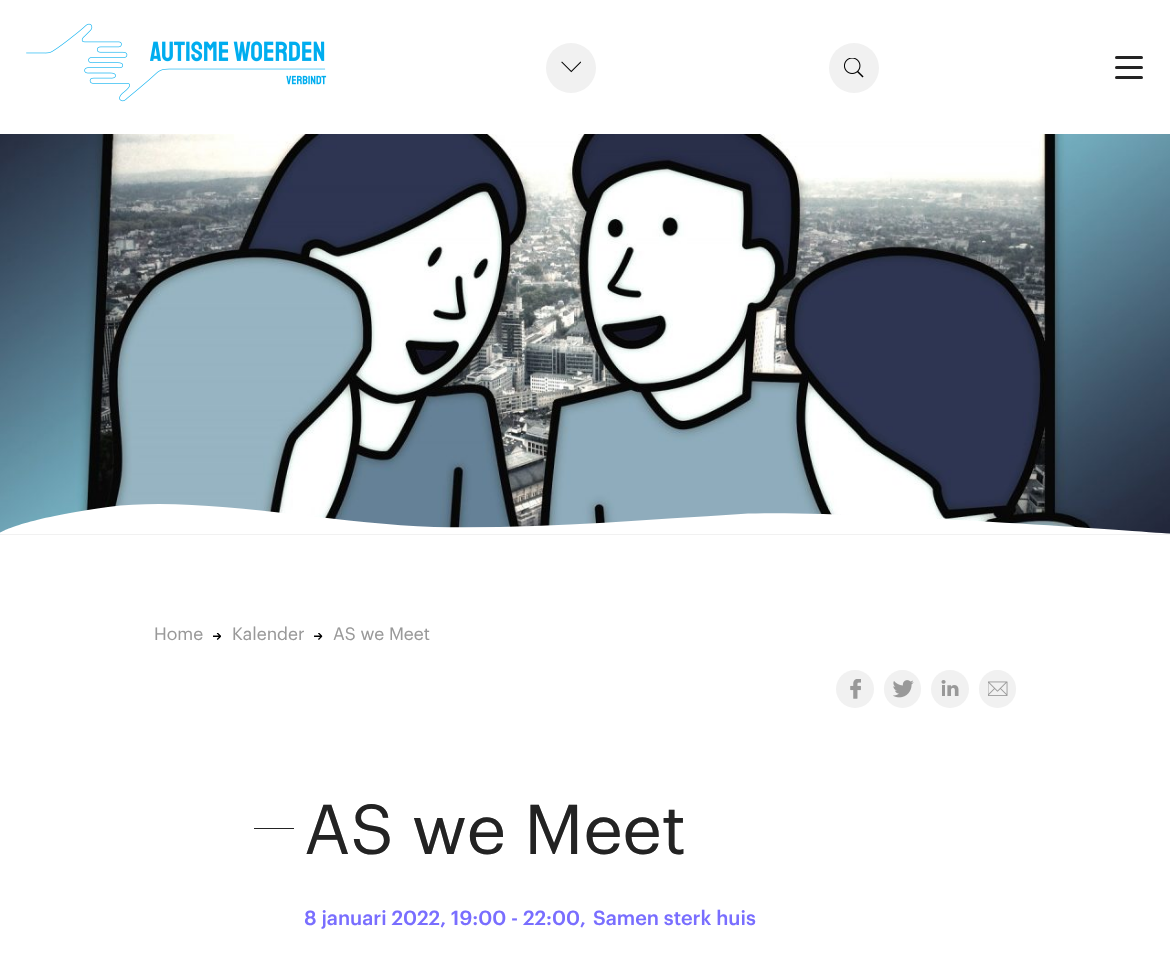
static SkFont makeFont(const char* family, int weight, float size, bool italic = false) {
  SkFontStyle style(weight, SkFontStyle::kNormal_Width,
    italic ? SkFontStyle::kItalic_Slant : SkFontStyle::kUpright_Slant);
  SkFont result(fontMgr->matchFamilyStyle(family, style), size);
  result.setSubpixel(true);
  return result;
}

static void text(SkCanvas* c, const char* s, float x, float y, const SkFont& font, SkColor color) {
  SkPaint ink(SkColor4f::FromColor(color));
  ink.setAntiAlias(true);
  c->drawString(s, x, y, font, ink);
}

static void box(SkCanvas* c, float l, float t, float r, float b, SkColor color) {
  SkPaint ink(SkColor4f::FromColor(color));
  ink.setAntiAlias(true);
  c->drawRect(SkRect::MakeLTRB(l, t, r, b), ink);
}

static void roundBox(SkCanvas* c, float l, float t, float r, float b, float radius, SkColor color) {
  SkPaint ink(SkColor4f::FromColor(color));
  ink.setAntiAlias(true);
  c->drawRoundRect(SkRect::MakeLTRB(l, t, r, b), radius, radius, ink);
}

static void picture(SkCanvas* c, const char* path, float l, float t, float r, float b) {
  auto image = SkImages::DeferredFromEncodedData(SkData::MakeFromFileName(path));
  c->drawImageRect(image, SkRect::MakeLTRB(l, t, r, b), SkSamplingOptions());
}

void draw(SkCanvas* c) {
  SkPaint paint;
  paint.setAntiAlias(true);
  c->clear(0xffffffff);
  picture(c, "img_01.png", 26, 23, 327, 102);
  paint.setColor(0xfff1f1f1);
  c->drawCircle(571, 68, 25, paint);
  picture(c, "img_02.png", 561, 61, 581, 73);
  c->drawCircle(854, 68, 25, paint);
  picture(c, "img_03.png", 844, 58, 864, 78);
  roundBox(c, 1115, 66, 1143, 69, 1.5f, 0xff232323);
  roundBox(c, 1115, 56, 1143, 59, 1.5f, 0xff232323);
  roundBox(c, 1115, 76, 1143, 79, 1.5f, 0xff232323);
  picture(c, "img_04.png", 0, 134, 1170, 534);
  paint.setColor(0xffffffff);
  c->drawPath(SkPathBuilder().moveTo(-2, 534).lineTo(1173, 534).cubicTo(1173, 534, 841, 509, 741, 514).cubicTo(641, 520, 540, 529, 434, 527).cubicTo(329, 524, 203, 495, 108, 507).cubicTo(14, 520, -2, 534, -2, 534).close().detach(), paint);
  box(c, 0, 534, 1170, 535, 0xfff1f1f1);
  SkFont face1 = makeFont("Graphik", 400, 17.5f);
  text(c, "Home", 154, 640, face1, 0xff999999);
  picture(c, "img_05.png", 213, 633, 221, 640);
  text(c, "Kalender", 232, 640, face1, 0xff999999);
  picture(c, "img_06.png", 314, 633, 323, 640);
  text(c, "AS we Meet", 333, 640, face1, 0xff999999);
  paint.setColor(0xfff1f1f1);
  c->drawCircle(855, 689, 19, paint);
  picture(c, "img_07.png", 850, 679, 861, 699);
  roundBox(c, 884, 670, 921, 708, 18.5f, 0xfff1f1f1);
  picture(c, "img_08.png", 893, 680, 914, 698);
  c->drawCircle(950, 689, 19, paint);
  picture(c, "img_09.png", 941, 680, 959, 696);
  roundBox(c, 979, 670, 1016, 708, 18.5f, 0xfff1f1f1);
  picture(c, "img_10.png", 988, 681, 1008, 696);
  box(c, 254, 828, 294, 829, 0xff232323);
  SkFont face2 = makeFont("Graphik", 400, 69);
  text(c, "AS we Meet", 304, 854, face2, 0xff232323);
  SkFont face3 = makeFont("Graphik", 500, 20);
  text(c, "8 januari 2022,", 304, 925, face3, 0xff796eff);
  text(c, "19:00 - 22:00,", 451, 925, face3, 0xff796eff);
  text(c, "Samen sterk huis", 593, 925, face3, 0xff796eff);
}
